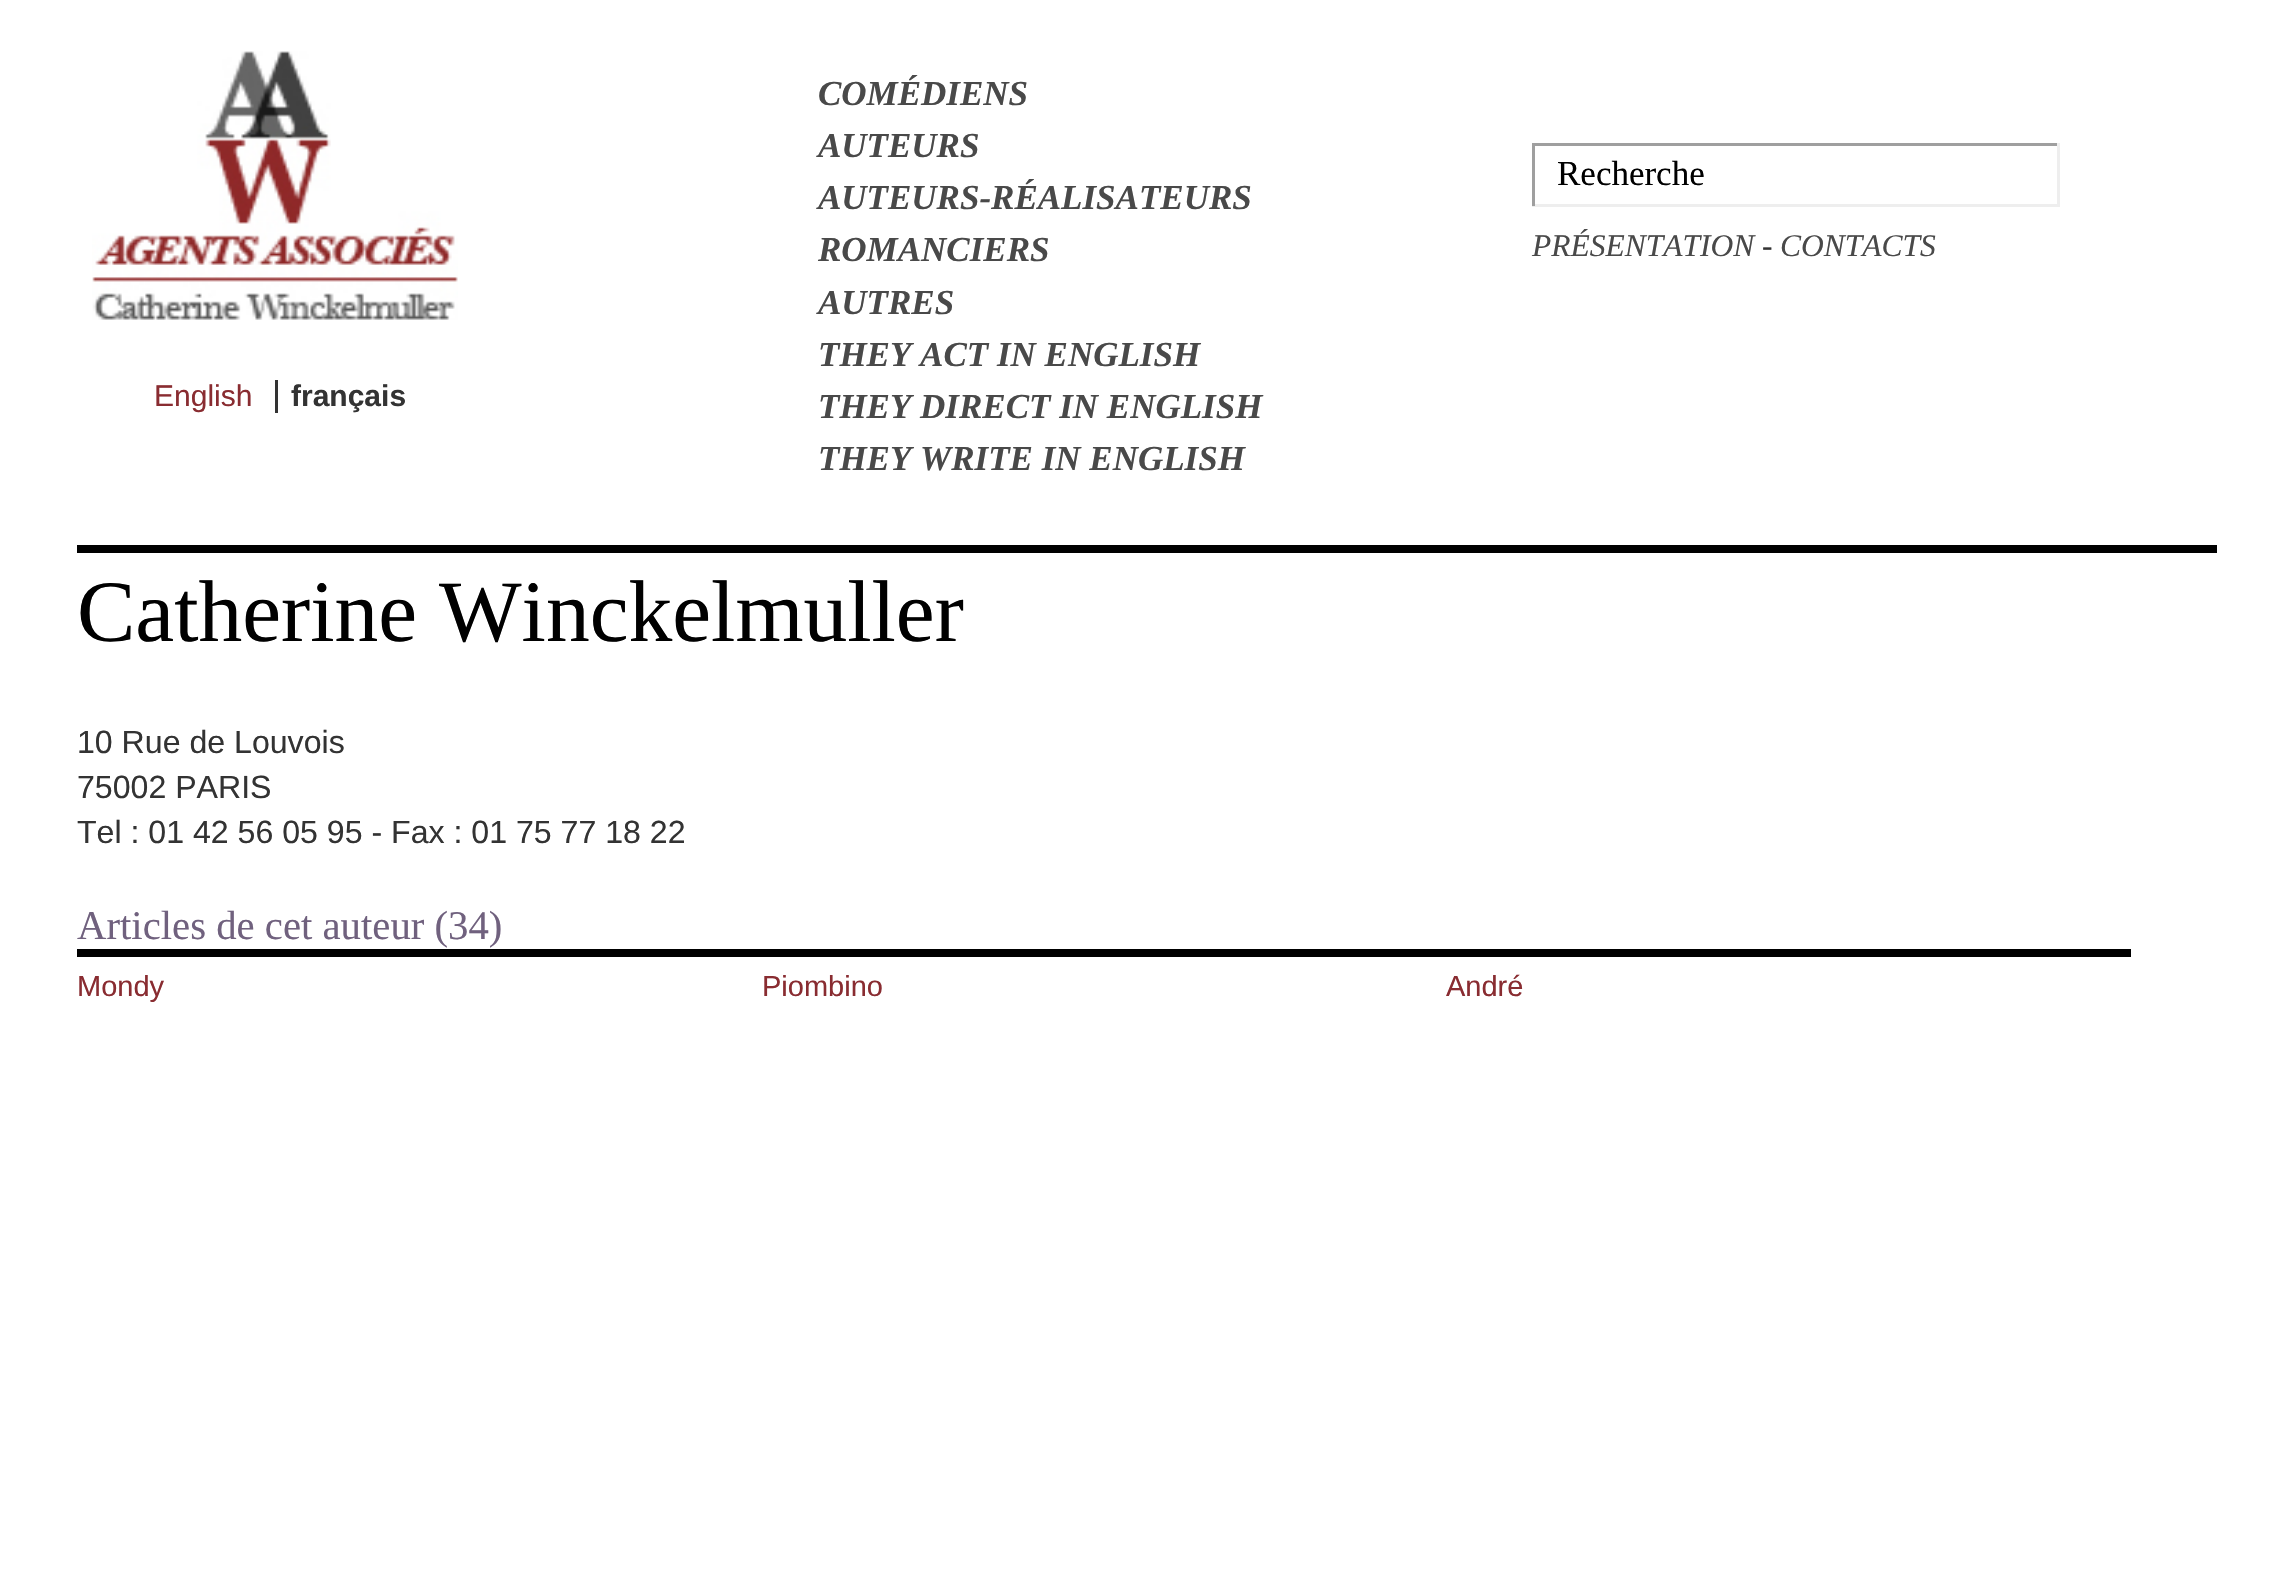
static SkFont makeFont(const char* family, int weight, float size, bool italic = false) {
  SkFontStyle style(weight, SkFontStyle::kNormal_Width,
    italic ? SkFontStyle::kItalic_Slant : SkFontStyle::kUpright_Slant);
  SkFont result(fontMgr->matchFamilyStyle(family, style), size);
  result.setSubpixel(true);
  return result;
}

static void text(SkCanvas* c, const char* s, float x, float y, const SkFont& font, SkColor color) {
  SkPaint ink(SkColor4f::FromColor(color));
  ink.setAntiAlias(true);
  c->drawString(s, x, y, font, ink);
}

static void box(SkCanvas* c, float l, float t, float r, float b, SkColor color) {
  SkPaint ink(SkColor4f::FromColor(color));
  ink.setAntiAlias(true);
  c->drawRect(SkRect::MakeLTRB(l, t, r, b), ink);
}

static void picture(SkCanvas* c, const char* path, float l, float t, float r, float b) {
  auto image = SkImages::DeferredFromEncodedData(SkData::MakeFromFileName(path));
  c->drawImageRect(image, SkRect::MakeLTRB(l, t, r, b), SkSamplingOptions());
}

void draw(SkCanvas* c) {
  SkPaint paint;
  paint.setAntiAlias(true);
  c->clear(0xffffffff);
  SkFont face1 = makeFont("Liberation Serif", 700, 35, true);
  text(c, "COMÉDIENS", 818, 105, face1, 0xff494949);
  text(c, "AUTEURS", 818, 157, face1, 0xff494949);
  text(c, "AUTEURS-RÉALISATEURS", 818, 209, face1, 0xff494949);
  text(c, "ROMANCIERS", 818, 261, face1, 0xff494949);
  text(c, "AUTRES", 818, 314, face1, 0xff494949);
  text(c, "THEY ACT IN ENGLISH", 818, 366, face1, 0xff494949);
  text(c, "THEY DIRECT IN ENGLISH", 818, 418, face1, 0xff494949);
  text(c, "THEY WRITE IN ENGLISH", 818, 470, face1, 0xff494949);
  box(c, 1532, 143, 2060, 146, 0xff9f9f9f);
  box(c, 2057, 143, 2060, 206, 0xffeeeeee);
  box(c, 1532, 204, 2060, 207, 0xffeeeeee);
  box(c, 1532, 143, 1535, 206, 0xff9f9f9f);
  SkFont face2 = makeFont("Liberation Serif", 400, 35);
  text(c, "Recherche", 1557, 185, face2, 0xff000000);
  SkFont face3 = makeFont("Liberation Serif", 400, 31.5f, true);
  text(c, "PRÉSENTATION", 1532, 256, face3, 0xff494949);
  text(c, "-", 1762, 256, face3, 0xff333333);
  text(c, "CONTACTS", 1780, 256, face3, 0xff494949);
  picture(c, "img_01.png", 92, 51, 458, 320);
  SkFont face4 = makeFont("Liberation Sans", 400, 30);
  text(c, "English", 154, 406, face4, 0xff892c31);
  SkFont face5 = makeFont("Liberation Sans", 700, 30);
  text(c, "français", 291, 406, face5, 0xff333333);
  box(c, 275, 380, 278, 413, 0xff333333);
  box(c, 77, 545, 2217, 553, 0xff000000);
  SkFont face6 = makeFont("Liberation Serif", 400, 87.5f);
  text(c, "Catherine Winckelmuller", 77, 641, face6, 0xff000000);
  SkFont face7 = makeFont("Liberation Sans", 400, 32.1f);
  text(c, "10 Rue de Louvois", 77, 753, face7, 0xff333333);
  text(c, "75002 PARIS", 77, 798, face7, 0xff333333);
  text(c, "Tel : 01 42 56 05 95 - Fax : 01 75 77 18 22", 77, 843, face7, 0xff333333);
  SkFont face8 = makeFont("Liberation Serif", 400, 40.75f);
  text(c, "Articles de cet auteur (34)", 77, 939, face8, 0xff70617e);
  box(c, 77, 949, 2131, 957, 0xff000000);
  SkFont face9 = makeFont("Liberation Sans", 400, 29);
  text(c, "Mondy", 77, 996, face9, 0xff892c31);
  text(c, "Piombino", 762, 996, face9, 0xff892c31);
  text(c, "André", 1446, 996, face9, 0xff892c31);
}
